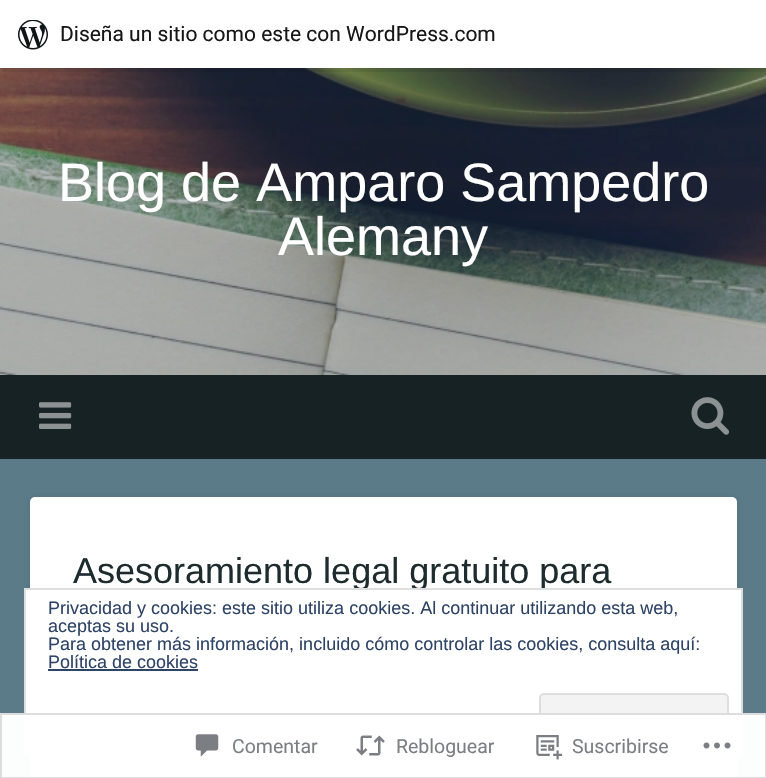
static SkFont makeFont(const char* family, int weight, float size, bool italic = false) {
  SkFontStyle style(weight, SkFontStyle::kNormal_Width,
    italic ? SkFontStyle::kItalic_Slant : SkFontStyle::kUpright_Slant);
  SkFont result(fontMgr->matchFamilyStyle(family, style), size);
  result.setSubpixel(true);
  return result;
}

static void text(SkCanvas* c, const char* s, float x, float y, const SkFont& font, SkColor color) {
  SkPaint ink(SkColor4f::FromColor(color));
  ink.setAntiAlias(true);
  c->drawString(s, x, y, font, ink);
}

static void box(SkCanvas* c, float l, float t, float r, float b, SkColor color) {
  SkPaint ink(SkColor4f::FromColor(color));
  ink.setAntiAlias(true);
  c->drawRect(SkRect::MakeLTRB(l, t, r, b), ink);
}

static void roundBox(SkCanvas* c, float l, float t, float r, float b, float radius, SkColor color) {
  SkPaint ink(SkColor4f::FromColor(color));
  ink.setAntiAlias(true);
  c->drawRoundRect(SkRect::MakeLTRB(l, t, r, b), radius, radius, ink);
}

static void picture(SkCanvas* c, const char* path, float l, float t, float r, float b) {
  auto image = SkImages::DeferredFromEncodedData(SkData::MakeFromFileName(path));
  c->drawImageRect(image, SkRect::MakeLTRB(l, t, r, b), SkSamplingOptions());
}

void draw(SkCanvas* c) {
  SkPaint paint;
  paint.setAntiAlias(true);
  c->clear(0xff5b7b89);
  picture(c, "img_02.png", 0, 68, 766, 375);
  paint.setColor(0x14000000);
  c->drawPath(SkPathBuilder().moveTo(2, 68).lineTo(2, 72).lineTo(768, 72).lineTo(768, 5).lineTo(766, 5).lineTo(766, 68).close().detach(), paint);
  box(c, 0, 0, 766, 68, 0xffffffff);
  picture(c, "img_01.png", 18, 20, 48, 50);
  SkFont face1 = makeFont("Roboto", 400, 21);
  text(c, "Diseña un sitio como este con WordPress.com", 60, 41, face1, 0xff171717);
  SkFont face2 = makeFont("Arimo", 400, 54);
  text(c, "Blog de Amparo Sampedro", 58, 201, face2, 0xffffffff);
  text(c, "Alemany", 278, 255, face2, 0xffffffff);
  box(c, 0, 375, 766, 459, 0xff172225);
  picture(c, "img_03.png", 39, 402, 72, 429);
  picture(c, "img_04.png", 691, 397, 729, 435);
  paint.setColor(0x1a000000);
  paint.setMaskFilter(SkMaskFilter::MakeBlur(kNormal_SkBlurStyle, 3));
  c->drawRoundRect(SkRect::MakeLTRB(30, 498, 737, 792), 5, 5, paint);
  paint.setMaskFilter(nullptr);
  roundBox(c, 30, 497, 737, 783, 5, 0xffffffff);
  SkFont face3 = makeFont("Arimo", 400, 36);
  text(c, "Asesoramiento legal gratuito para", 73, 583, face3, 0xff1e2c30);
  paint.setColor(0xffffffff);
  c->drawRect(SkRect::MakeLTRB(25, 589, 742, 754), paint);
  paint.setStyle(SkPaint::kStroke_Style);
  paint.setStrokeWidth(2);
  paint.setColor(0xffdedede);
  c->drawRect(SkRect::MakeLTRB(25, 589, 742, 754), paint);
  SkFont face4 = makeFont("Arimo", 400, 18);
  text(c, "Privacidad y cookies: este sitio utiliza cookies. Al continuar utilizando esta web,", 48, 614, face4, 0xff2e4467);
  text(c, "aceptas su uso.", 48, 632, face4, 0xff2e4467);
  text(c, "Para obtener más información, incluido cómo controlar las cookies, consulta aquí:", 48, 650, face4, 0xff2e4467);
  text(c, "Política de cookies", 48, 668, face4, 0xff2e4467);
  box(c, 48, 669, 198, 671, 0xff2e4467);
  paint.setStyle(SkPaint::kFill_Style);
  paint.setColor(0xfff3f3f3);
  c->drawRoundRect(SkRect::MakeLTRB(540, 694, 728, 740), 4, 4, paint);
  paint.setStyle(SkPaint::kStroke_Style);
  paint.setColor(0xffdedede);
  c->drawRoundRect(SkRect::MakeLTRB(540, 694, 728, 740), 4, 4, paint);
  box(c, 0, 713, 766, 778, 0xfaffffff);
  paint.setColor(0xfadcdcde);
  c->drawRect(SkRect::MakeLTRB(1, 714, 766, 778), paint);
  picture(c, "img_05.png", 195, 734, 219, 757);
  SkFont face5 = makeFont("Roboto", 400, 19.5f);
  text(c, "Comentar", 232, 753, face5, 0xff7b7f84);
  picture(c, "img_06.png", 356, 735, 385, 756);
  text(c, "Rebloguear", 396, 753, face5, 0xff7b7f84);
  picture(c, "img_07.png", 536, 735, 563, 760);
  text(c, "Suscribirse", 572, 753, face5, 0xff7b7f84);
  picture(c, "img_08.png", 703, 742, 731, 749);
}
